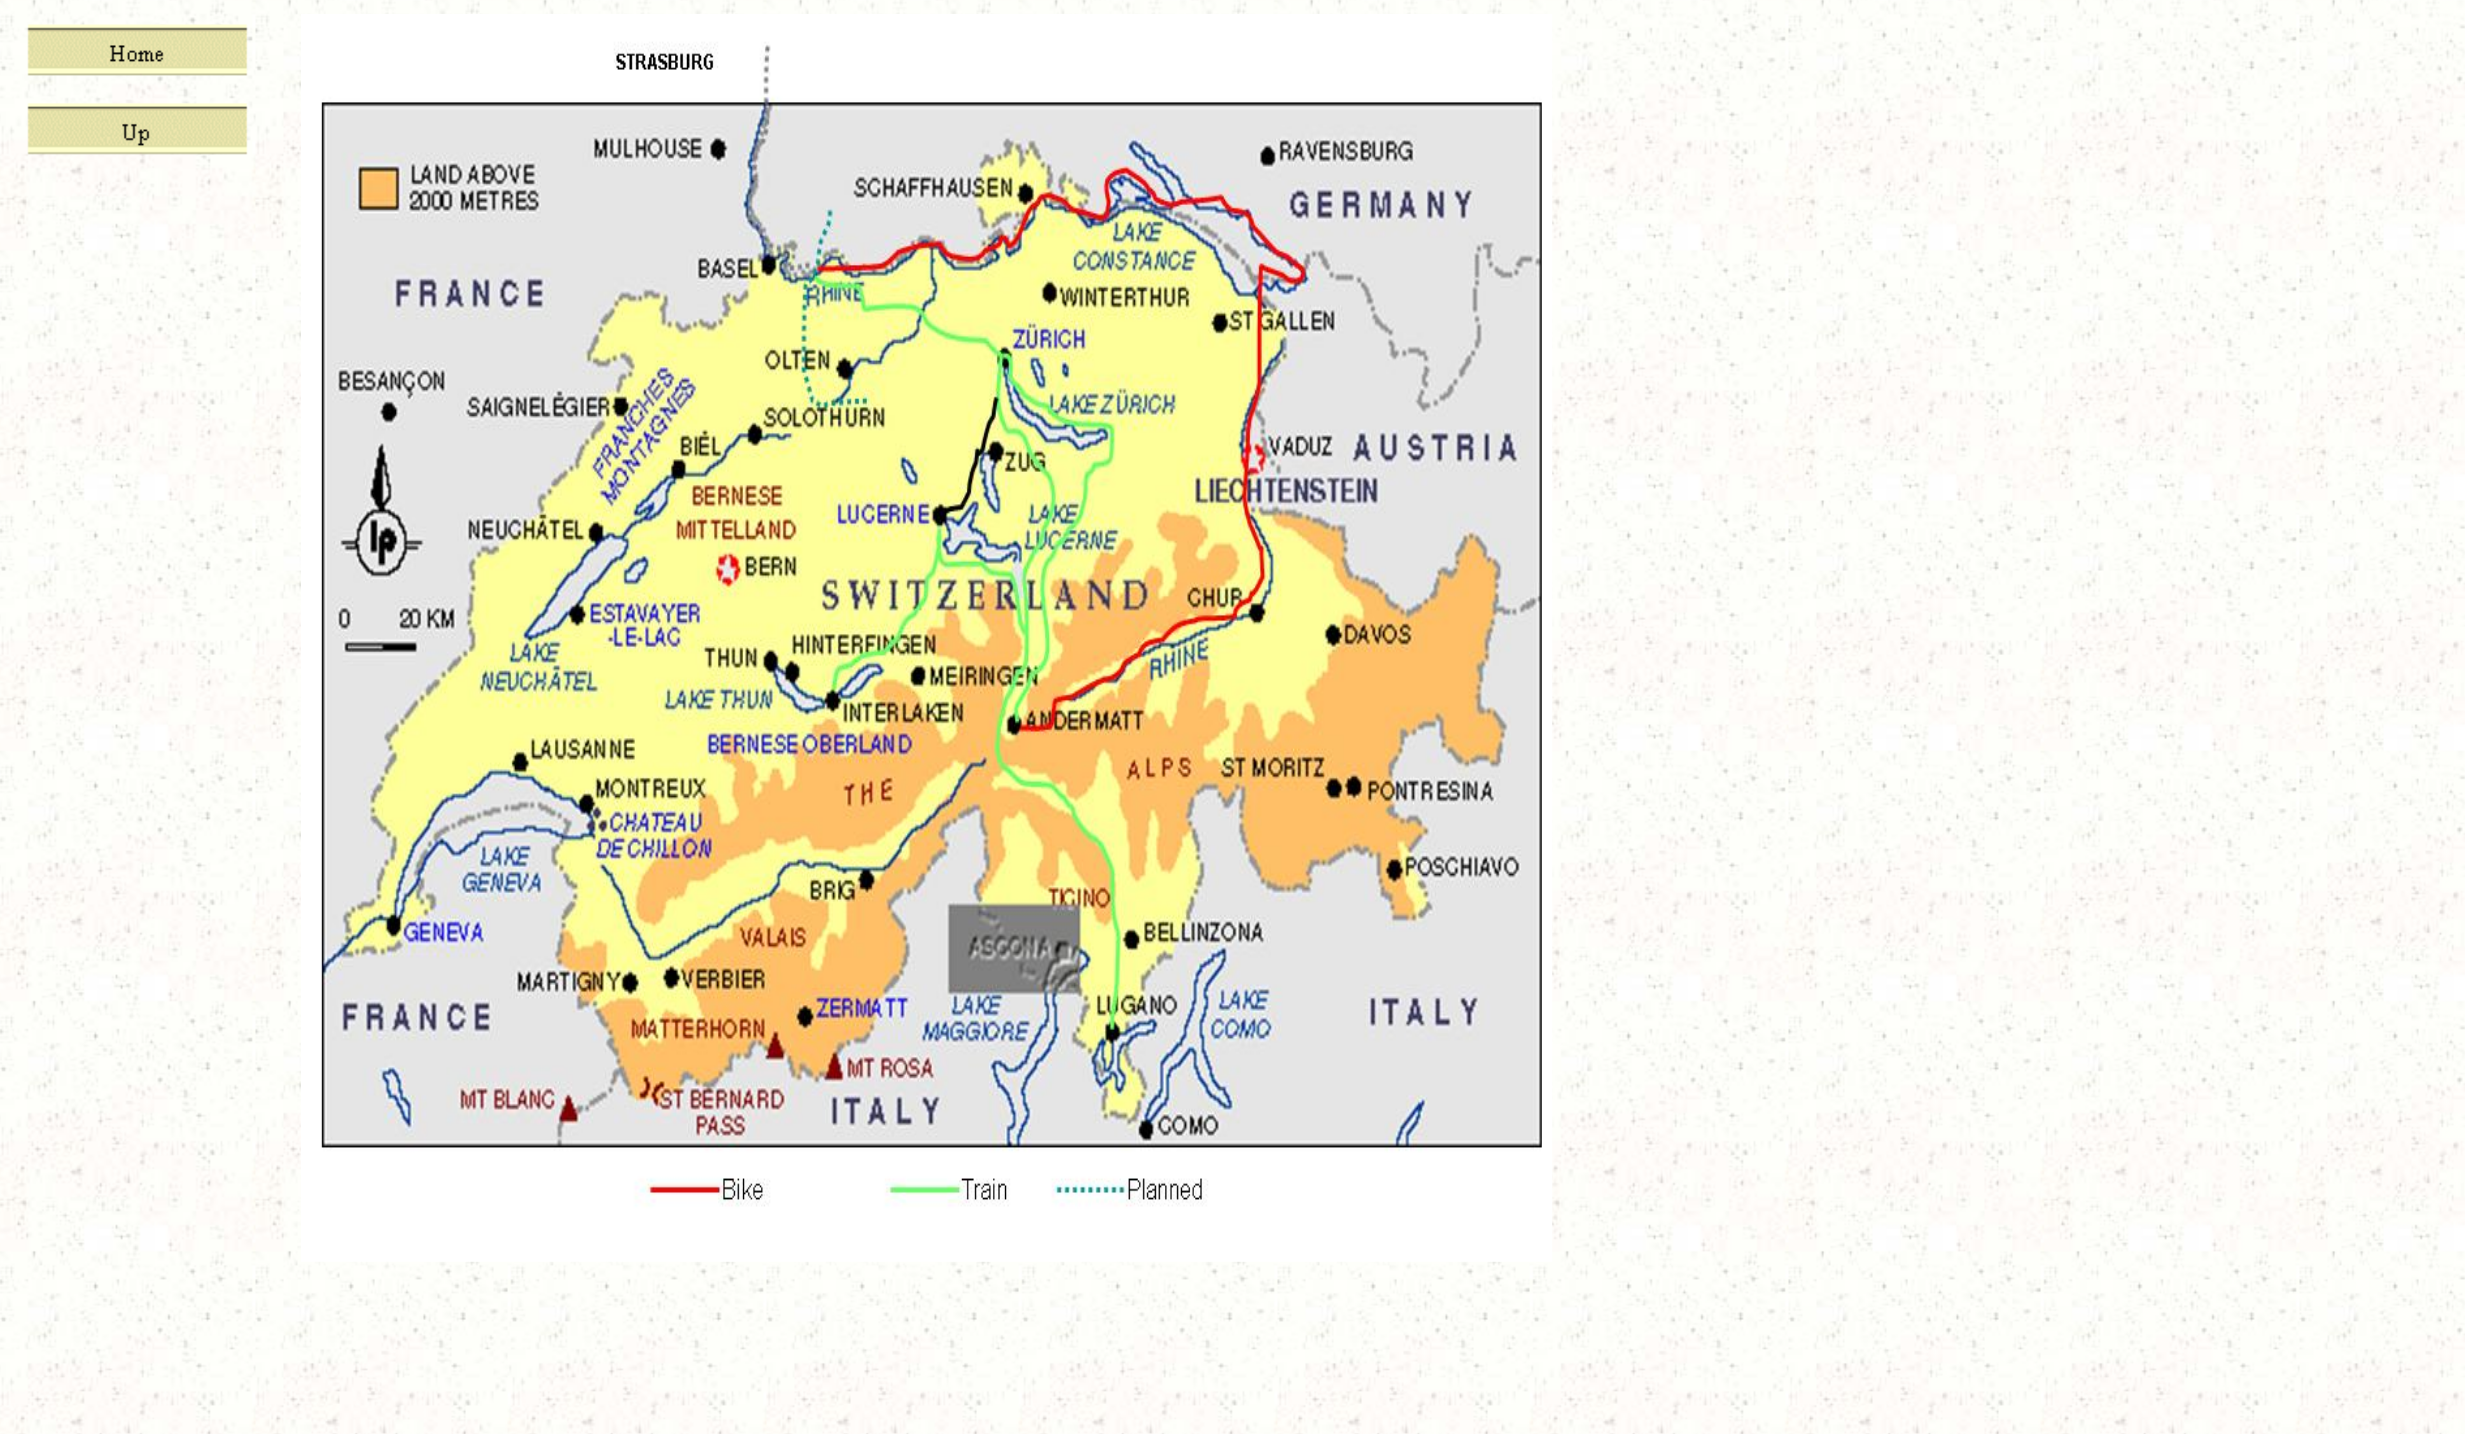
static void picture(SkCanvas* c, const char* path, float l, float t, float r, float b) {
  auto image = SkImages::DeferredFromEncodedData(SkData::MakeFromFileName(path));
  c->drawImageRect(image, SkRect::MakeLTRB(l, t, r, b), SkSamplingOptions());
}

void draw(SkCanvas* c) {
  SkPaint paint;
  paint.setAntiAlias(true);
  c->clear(0xffffffff);
  picture(c, "img_01.png", 0, 0, 2465, 1434);
  picture(c, "img_02.png", 27, 24, 248, 76);
  picture(c, "img_03.png", 27, 103, 248, 155);
  picture(c, "img_04.png", 301, 14, 1553, 1262);
}
